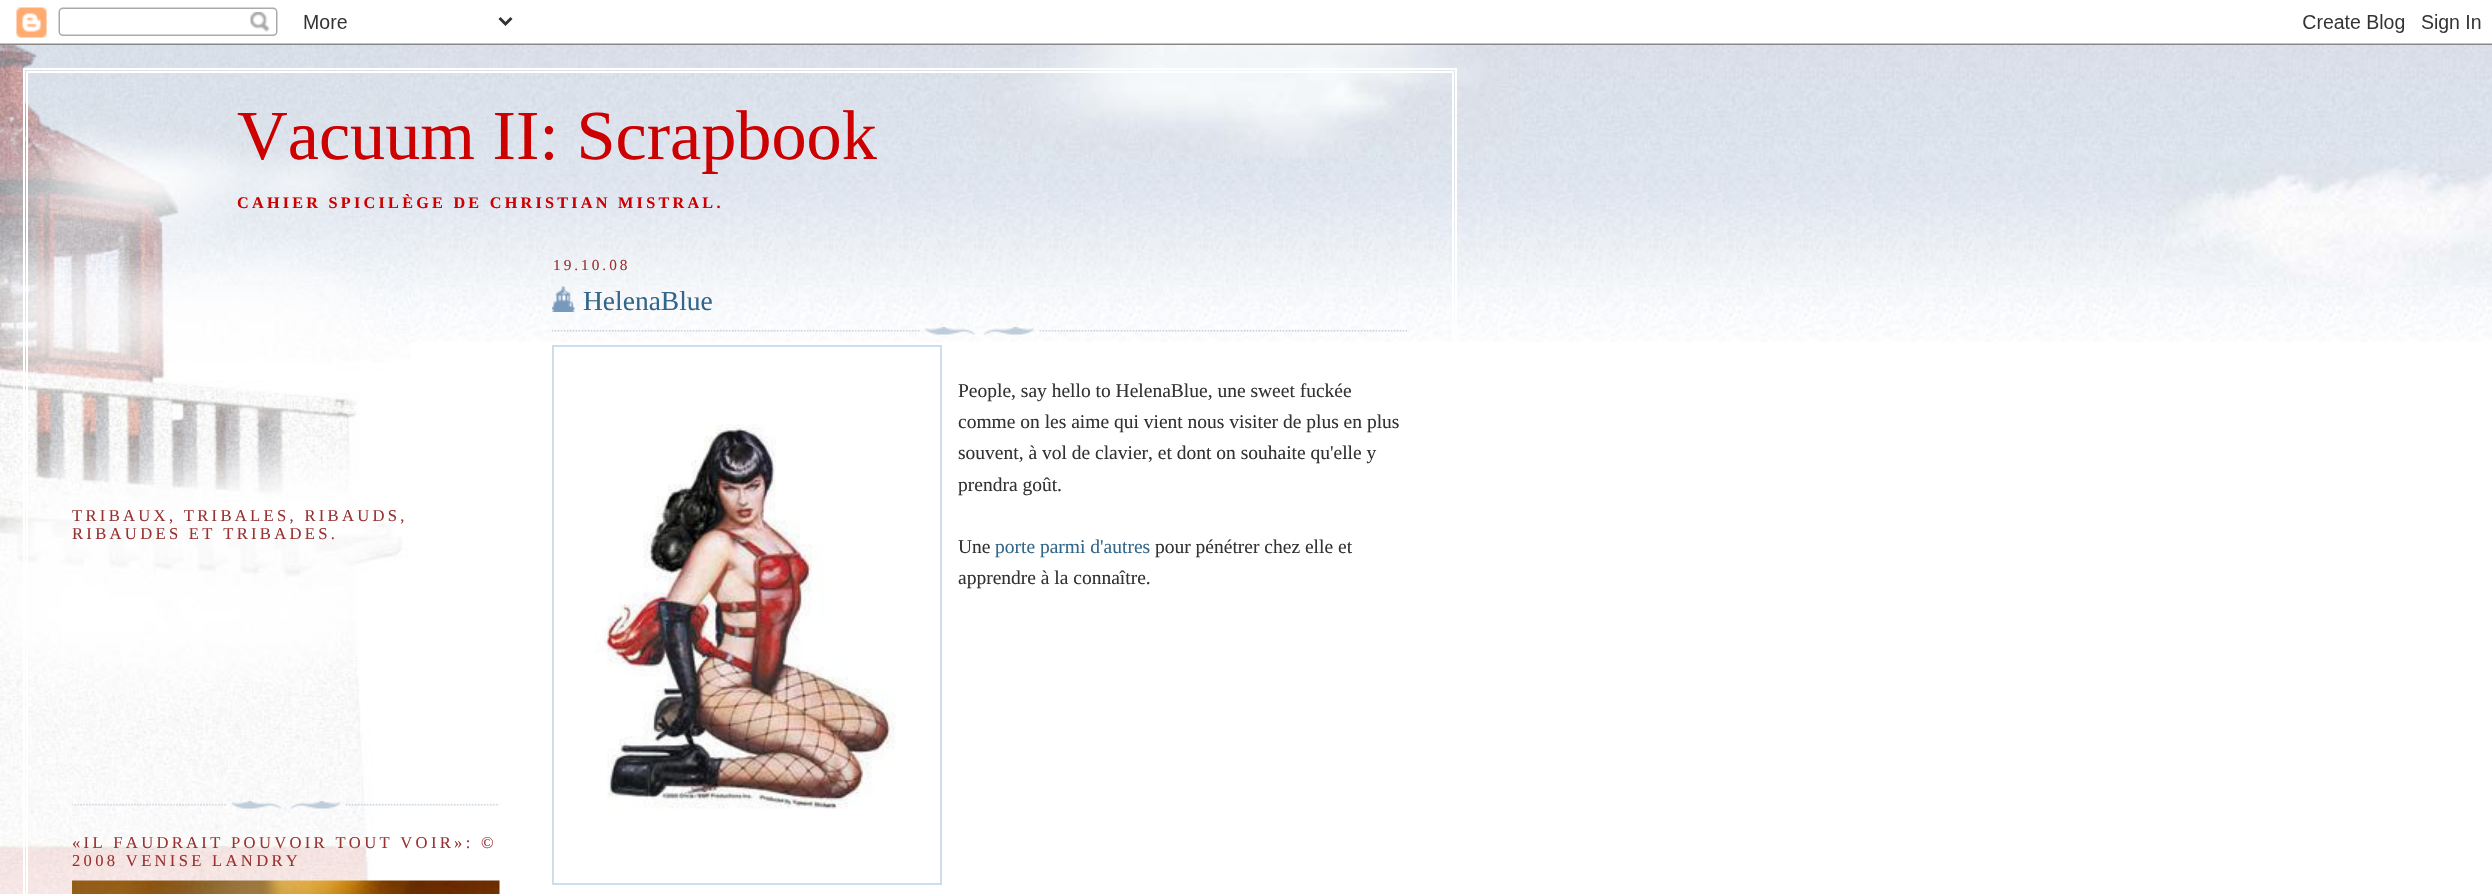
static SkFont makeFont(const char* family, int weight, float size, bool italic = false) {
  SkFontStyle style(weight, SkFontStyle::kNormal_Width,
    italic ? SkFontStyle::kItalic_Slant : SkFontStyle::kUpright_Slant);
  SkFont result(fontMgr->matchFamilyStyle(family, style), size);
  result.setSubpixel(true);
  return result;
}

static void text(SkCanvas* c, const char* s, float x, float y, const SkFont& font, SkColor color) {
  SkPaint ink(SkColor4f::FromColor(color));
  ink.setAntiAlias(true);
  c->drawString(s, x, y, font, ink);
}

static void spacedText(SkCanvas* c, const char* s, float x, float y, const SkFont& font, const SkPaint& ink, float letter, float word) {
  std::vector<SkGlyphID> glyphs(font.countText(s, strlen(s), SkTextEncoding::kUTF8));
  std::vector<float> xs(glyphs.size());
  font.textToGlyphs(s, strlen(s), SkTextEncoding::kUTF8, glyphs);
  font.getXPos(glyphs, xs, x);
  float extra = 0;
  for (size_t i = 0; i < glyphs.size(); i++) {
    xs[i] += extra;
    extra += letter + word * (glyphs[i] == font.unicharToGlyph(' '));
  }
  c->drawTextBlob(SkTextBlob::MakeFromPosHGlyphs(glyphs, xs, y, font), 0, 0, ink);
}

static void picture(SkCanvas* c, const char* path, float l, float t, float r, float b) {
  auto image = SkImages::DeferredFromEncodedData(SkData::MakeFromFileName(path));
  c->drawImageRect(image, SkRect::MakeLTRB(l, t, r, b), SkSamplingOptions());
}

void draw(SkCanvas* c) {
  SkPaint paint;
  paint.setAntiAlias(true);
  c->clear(0xffffffff);
  picture(c, "img_01.png", 0, 7, 2492, 45);
  picture(c, "img_02.png", 411, 45, 2492, 342);
  picture(c, "img_03.png", 0, 45, 411, 894);
  picture(c, "img_04.png", 2163, 157, 2492, 285);
  picture(c, "img_05.png", 984, 45, 1509, 158);
  paint.setStyle(SkPaint::kStroke_Style);
  paint.setStrokeWidth(2);
  paint.setColor(0xffffffff);
  c->drawRect(SkRect::MakeLTRB(24, 69, 1456, 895), paint);
  c->drawRect(SkRect::MakeLTRB(27, 72, 1453, 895), paint);
  SkFont face1 = makeFont("Liberation Serif", 400, 70.25f);
  text(c, "Vacuum II: Scrapbook", 237, 159, face1, 0xffcc0000);
  SkFont face2 = makeFont("Liberation Serif", 700, 16.2f);
  paint.setStyle(SkPaint::kFill_Style);
  paint.setColor(0xffcc0000);
  spacedText(c, "CAHIER SPICILÈGE DE CHRISTIAN MISTRAL.", 237, 208, face2, paint, 3.25f, 0);
  SkFont face3 = makeFont("Liberation Serif", 400, 15.25f);
  paint.setColor(0xff993333);
  spacedText(c, "19.10.08", 553, 270, face3, paint, 3, 0);
  picture(c, "img_06.png", 552, 286, 575, 312);
  SkFont face4 = makeFont("Liberation Serif", 400, 27.5f);
  text(c, "HelenaBlue", 583, 310, face4, 0xff336688);
  picture(c, "img_07.png", 552, 327, 1407, 335);
  paint.setStyle(SkPaint::kStroke_Style);
  paint.setColor(0xffccddee);
  c->drawRect(SkRect::MakeLTRB(553, 346, 941, 884), paint);
  picture(c, "img_08.png", 595, 424, 896, 809);
  SkFont face5 = makeFont("Liberation Serif", 400, 19.5f);
  text(c, "People, say hello to HelenaBlue, une sweet fuckée", 958, 397, face5, 0xff333333);
  text(c, "comme on les aime qui vient nous visiter de plus en plus", 958, 428, face5, 0xff333333);
  text(c, "souvent, à vol de clavier, et dont on souhaite qu'elle y", 958, 459, face5, 0xff333333);
  text(c, "prendra goût.", 958, 491, face5, 0xff333333);
  text(c, "Une", 958, 553, face5, 0xff333333);
  text(c, "porte parmi d'autres", 995, 553, face5, 0xff336688);
  text(c, "pour pénétrer chez elle et", 1155, 553, face5, 0xff333333);
  text(c, "apprendre à la connaître.", 958, 584, face5, 0xff333333);
  picture(c, "img_09.png", 72, 801, 500, 809);
  SkFont face6 = makeFont("Liberation Serif", 400, 16.6f);
  paint.setStyle(SkPaint::kFill_Style);
  paint.setColor(0xff993333);
  spacedText(c, "TRIBAUX, TRIBALES, RIBAUDS,", 72, 521, face6, paint, 3.3f, 0);
  spacedText(c, "RIBAUDES ET TRIBADES.", 72, 539, face6, paint, 3.3f, 0);
  spacedText(c, "«IL FAUDRAIT POUVOIR TOUT VOIR»: ©", 72, 848, face6, paint, 3.3f, 0);
  spacedText(c, "2008 VENISE LANDRY", 72, 866, face6, paint, 3.3f, 0);
  picture(c, "img_10.png", 72, 880, 500, 894);
}
